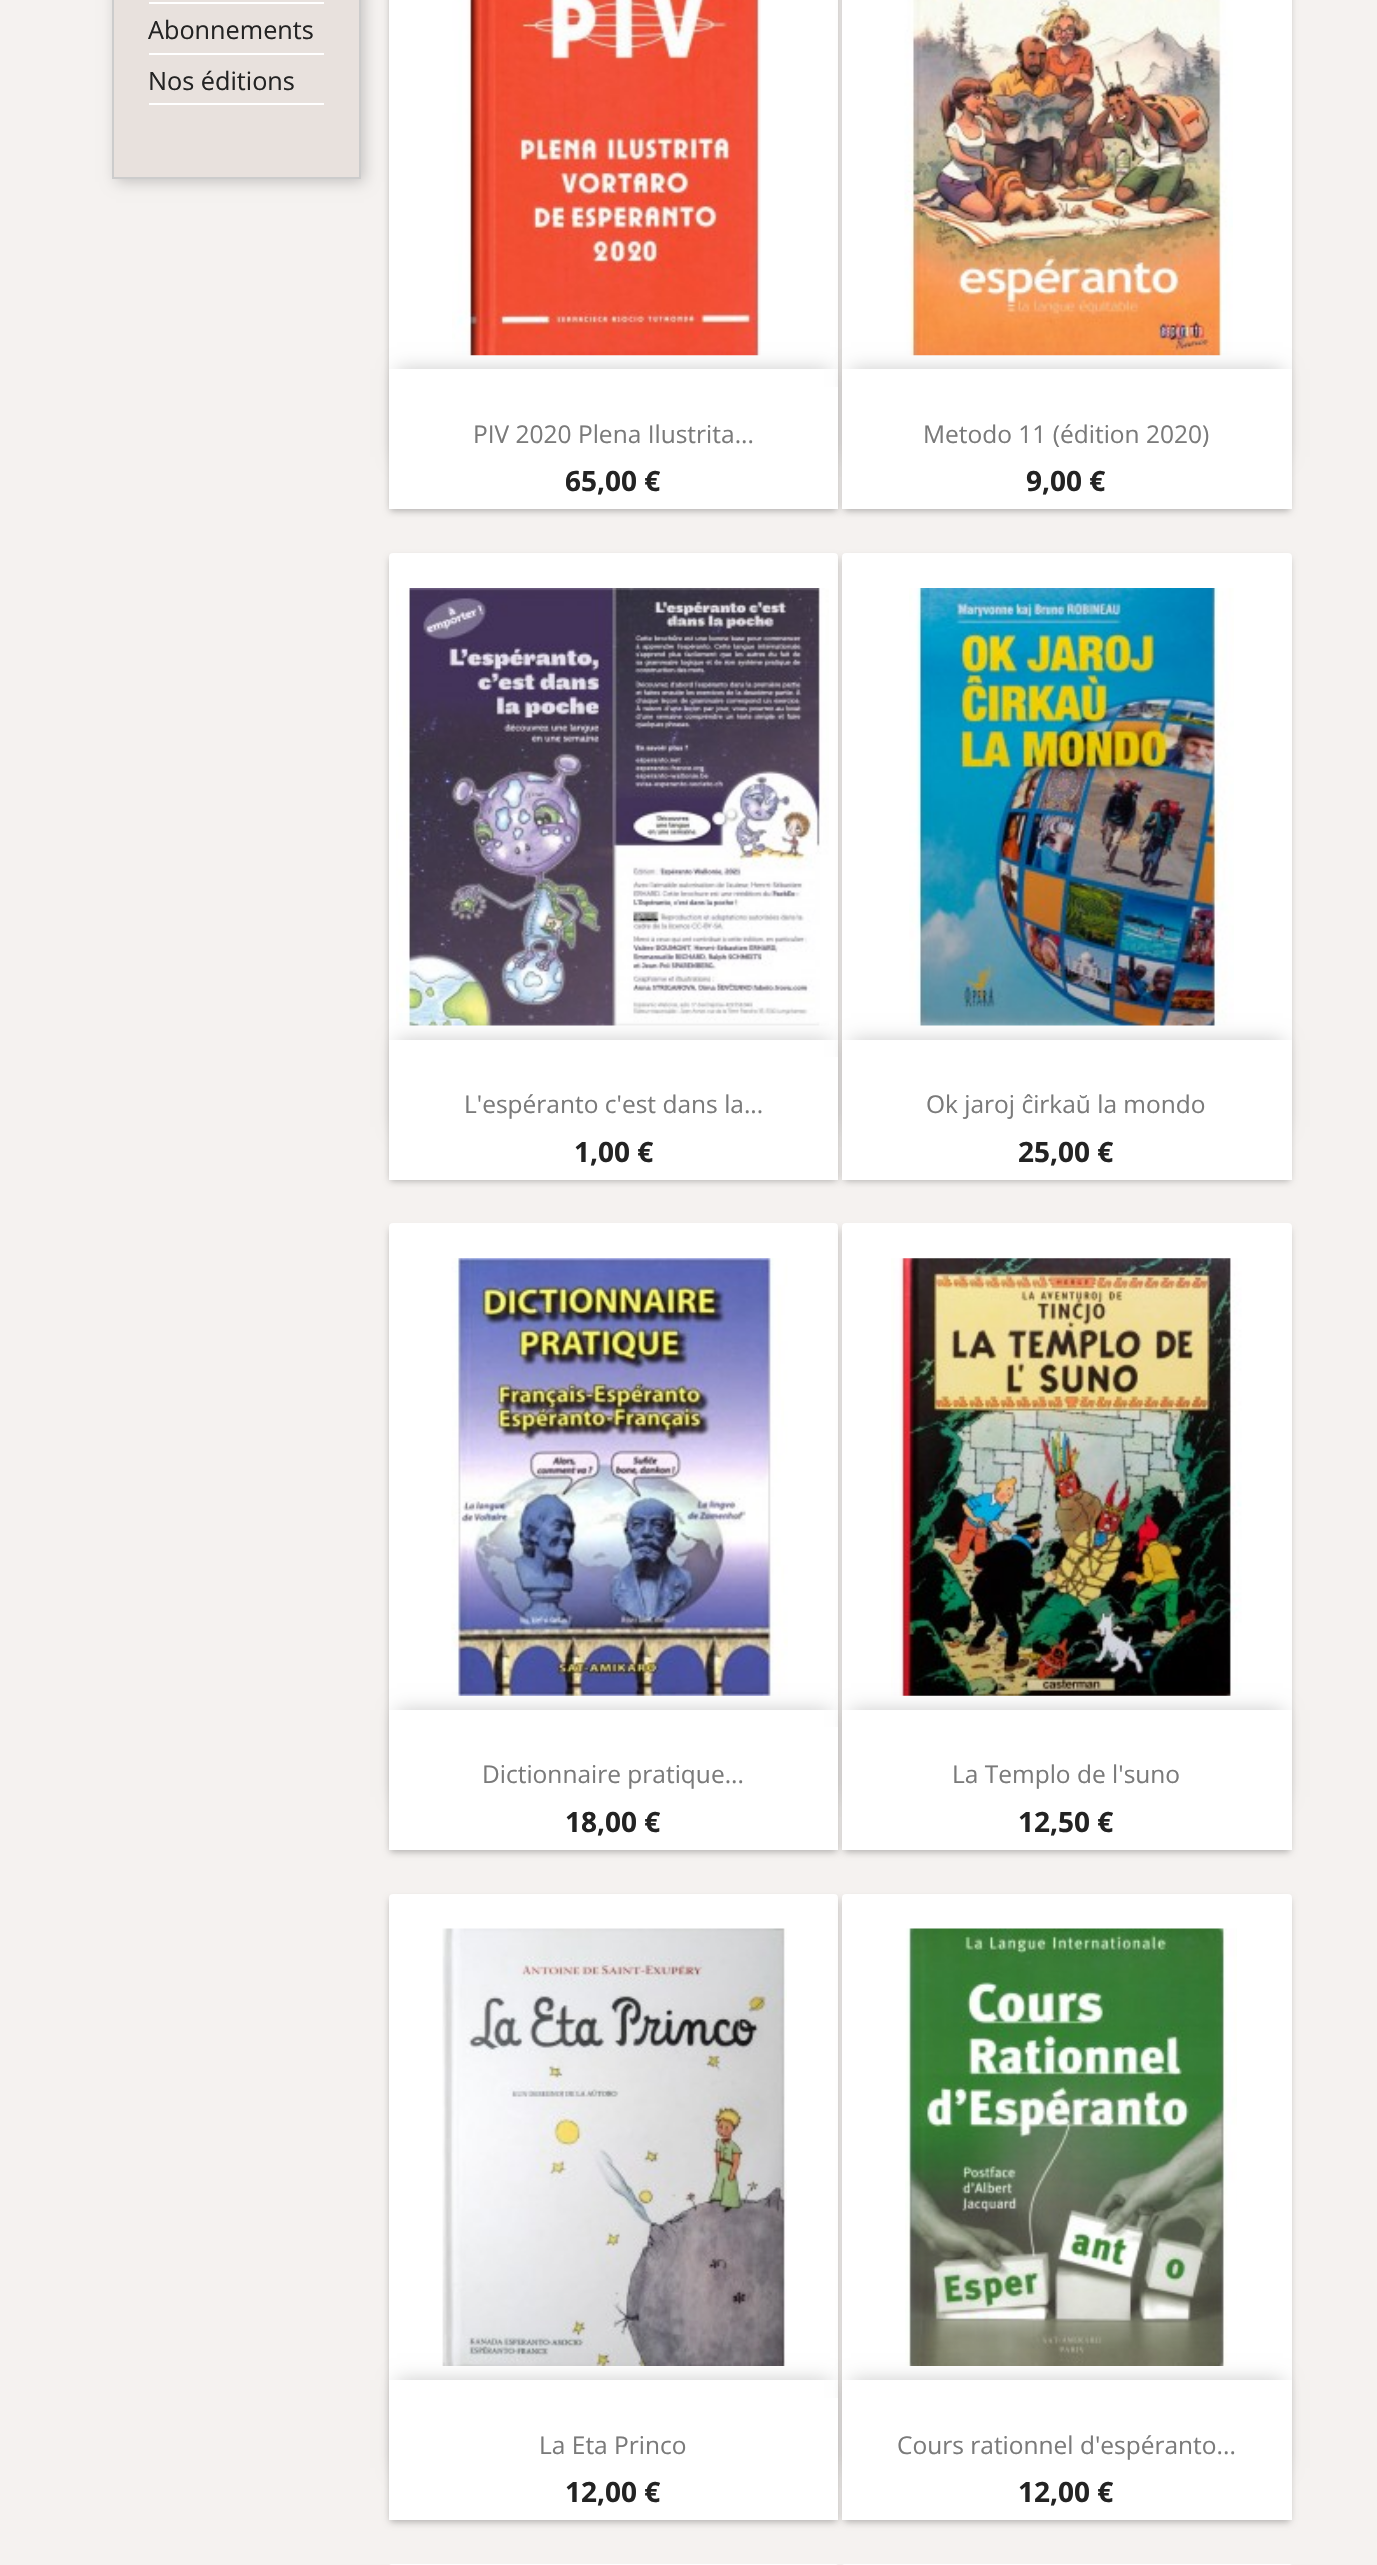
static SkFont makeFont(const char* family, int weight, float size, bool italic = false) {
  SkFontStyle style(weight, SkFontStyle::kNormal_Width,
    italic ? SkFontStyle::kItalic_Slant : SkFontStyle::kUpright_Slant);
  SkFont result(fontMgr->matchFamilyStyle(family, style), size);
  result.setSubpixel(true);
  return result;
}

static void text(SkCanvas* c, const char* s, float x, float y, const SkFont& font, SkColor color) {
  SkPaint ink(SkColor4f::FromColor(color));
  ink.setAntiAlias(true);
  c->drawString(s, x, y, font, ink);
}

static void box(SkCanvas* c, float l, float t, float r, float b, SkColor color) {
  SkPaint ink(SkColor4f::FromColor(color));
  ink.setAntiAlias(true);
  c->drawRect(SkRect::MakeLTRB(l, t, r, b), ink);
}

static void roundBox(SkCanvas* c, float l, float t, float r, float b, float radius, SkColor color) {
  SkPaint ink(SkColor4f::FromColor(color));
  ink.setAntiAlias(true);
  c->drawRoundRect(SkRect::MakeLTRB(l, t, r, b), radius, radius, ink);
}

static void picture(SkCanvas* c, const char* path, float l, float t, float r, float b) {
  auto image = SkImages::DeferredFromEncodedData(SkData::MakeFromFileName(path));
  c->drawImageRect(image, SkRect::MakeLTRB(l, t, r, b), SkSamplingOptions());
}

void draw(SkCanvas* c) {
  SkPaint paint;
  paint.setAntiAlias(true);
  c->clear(0xfff5f2f0);
  paint.setColor(0x33000000);
  paint.setMaskFilter(SkMaskFilter::MakeBlur(kNormal_SkBlurStyle, 7));
  c->drawRect(SkRect::MakeLTRB(116, -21, 364, 182), paint);
  paint.setMaskFilter(nullptr);
  paint.setColor(0xffe8e1dd);
  c->drawRect(SkRect::MakeLTRB(113, -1, 360, 178), paint);
  paint.setStyle(SkPaint::kStroke_Style);
  paint.setStrokeWidth(2);
  paint.setColor(0xffcccccc);
  c->drawRect(SkRect::MakeLTRB(113, -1, 360, 178), paint);
  box(c, 149, 2, 324, 4, 0xffffffff);
  box(c, 149, 53, 324, 55, 0xffffffff);
  SkFont face1 = makeFont("Open Sans", 400, 25.25f);
  text(c, "Abonnements", 148, 39, face1, 0xff232323);
  box(c, 149, 103, 324, 105, 0xffffffff);
  text(c, "Nos éditions", 148, 90, face1, 0xff232323);
  paint.setStyle(SkPaint::kFill_Style);
  paint.setColor(0x47000000);
  paint.setMaskFilter(SkMaskFilter::MakeBlur(kNormal_SkBlurStyle, 3.5f));
  c->drawRoundRect(SkRect::MakeLTRB(390, -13, 837, 511), 2, 2, paint);
  paint.setMaskFilter(nullptr);
  box(c, 389, 0, 838, 369, 0xffffffff);
  picture(c, "img_01.png", 452, 0, 761, 356);
  paint.setColor(0x33000000);
  paint.setMaskFilter(SkMaskFilter::MakeBlur(kNormal_SkBlurStyle, 9));
  c->drawRect(SkRect::MakeLTRB(397, 369, 830, 457), paint);
  paint.setMaskFilter(nullptr);
  box(c, 389, 369, 838, 387, 0xffffffff);
  paint.setColor(0x47000000);
  paint.setMaskFilter(SkMaskFilter::MakeBlur(kNormal_SkBlurStyle, 3.5f));
  c->drawRoundRect(SkRect::MakeLTRB(844, -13, 1290, 511), 2, 2, paint);
  paint.setMaskFilter(nullptr);
  box(c, 842, 0, 1292, 369, 0xffffffff);
  picture(c, "img_02.png", 904, 0, 1233, 356);
  paint.setColor(0x33000000);
  paint.setMaskFilter(SkMaskFilter::MakeBlur(kNormal_SkBlurStyle, 9));
  c->drawRect(SkRect::MakeLTRB(851, 369, 1283, 457), paint);
  paint.setMaskFilter(nullptr);
  box(c, 389, 387, 838, 509, 0xffffffff);
  SkFont face2 = makeFont("Open Sans", 400, 24.5f);
  text(c, "PIV 2020 Plena Ilustrita...", 473, 443, face2, 0xff7a7a7a);
  SkFont face3 = makeFont("Open Sans", 700, 28);
  text(c, "65,00 €", 565, 491, face3, 0xff232323);
  box(c, 842, 369, 1292, 509, 0xffffffff);
  text(c, "Metodo 11 (édition 2020)", 923, 443, face2, 0xff7a7a7a);
  text(c, "9,00 €", 1026, 491, face3, 0xff232323);
  paint.setColor(0x47000000);
  paint.setMaskFilter(SkMaskFilter::MakeBlur(kNormal_SkBlurStyle, 3.5f));
  c->drawRoundRect(SkRect::MakeLTRB(390, 558, 837, 1181), 2, 2, paint);
  paint.setMaskFilter(nullptr);
  roundBox(c, 389, 553, 838, 1180, 4, 0xffffffff);
  picture(c, "img_03.png", 396, 588, 829, 1026);
  c->save();
  c->clipPath(SkPathBuilder(SkPathFillType::kEvenOdd).moveTo(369, 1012).lineTo(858, 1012).lineTo(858, 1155).lineTo(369, 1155).close().moveTo(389, 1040).lineTo(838, 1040).lineTo(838, 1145).lineTo(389, 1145).close().detach(), true);
  paint.setColor(0x33000000);
  paint.setMaskFilter(SkMaskFilter::MakeBlur(kNormal_SkBlurStyle, 9));
  c->drawRect(SkRect::MakeLTRB(397, 1040, 830, 1127), paint);
  paint.setMaskFilter(nullptr);
  c->restore();
  paint.setColor(0x47000000);
  paint.setMaskFilter(SkMaskFilter::MakeBlur(kNormal_SkBlurStyle, 3.5f));
  c->drawRoundRect(SkRect::MakeLTRB(844, 558, 1290, 1181), 2, 2, paint);
  paint.setMaskFilter(nullptr);
  roundBox(c, 842, 553, 1292, 1180, 4, 0xffffffff);
  picture(c, "img_04.png", 909, 588, 1234, 1026);
  paint.setColor(0x33000000);
  paint.setMaskFilter(SkMaskFilter::MakeBlur(kNormal_SkBlurStyle, 9));
  c->drawRect(SkRect::MakeLTRB(851, 1040, 1283, 1127), paint);
  paint.setMaskFilter(nullptr);
  box(c, 389, 1057, 838, 1180, 0xffffffff);
  text(c, "L'espéranto c'est dans la...", 464, 1113, face2, 0xff7a7a7a);
  text(c, "1,00 €", 574, 1162, face3, 0xff232323);
  box(c, 842, 1040, 1292, 1180, 0xffffffff);
  text(c, "Ok jaroj ĉirkaŭ la mondo", 926, 1113, face2, 0xff7a7a7a);
  text(c, "25,00 €", 1018, 1162, face3, 0xff232323);
  paint.setColor(0x47000000);
  paint.setMaskFilter(SkMaskFilter::MakeBlur(kNormal_SkBlurStyle, 3.5f));
  c->drawRoundRect(SkRect::MakeLTRB(390, 1229, 837, 1852), 2, 2, paint);
  paint.setMaskFilter(nullptr);
  roundBox(c, 389, 1223, 838, 1850, 4, 0xffffffff);
  picture(c, "img_05.png", 451, 1258, 788, 1696);
  c->save();
  c->clipPath(SkPathBuilder(SkPathFillType::kEvenOdd).moveTo(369, 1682).lineTo(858, 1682).lineTo(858, 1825).lineTo(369, 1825).close().moveTo(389, 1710).lineTo(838, 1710).lineTo(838, 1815).lineTo(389, 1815).close().detach(), true);
  paint.setColor(0x33000000);
  paint.setMaskFilter(SkMaskFilter::MakeBlur(kNormal_SkBlurStyle, 9));
  c->drawRect(SkRect::MakeLTRB(397, 1710, 830, 1797), paint);
  paint.setMaskFilter(nullptr);
  c->restore();
  paint.setColor(0x47000000);
  paint.setMaskFilter(SkMaskFilter::MakeBlur(kNormal_SkBlurStyle, 3.5f));
  c->drawRoundRect(SkRect::MakeLTRB(844, 1229, 1290, 1852), 2, 2, paint);
  paint.setMaskFilter(nullptr);
  roundBox(c, 842, 1223, 1292, 1850, 4, 0xffffffff);
  picture(c, "img_06.png", 891, 1258, 1242, 1696);
  paint.setColor(0x33000000);
  paint.setMaskFilter(SkMaskFilter::MakeBlur(kNormal_SkBlurStyle, 9));
  c->drawRect(SkRect::MakeLTRB(851, 1710, 1283, 1797), paint);
  paint.setMaskFilter(nullptr);
  box(c, 389, 1727, 838, 1850, 0xffffffff);
  text(c, "Dictionnaire pratique...", 482, 1783, face2, 0xff7a7a7a);
  text(c, "18,00 €", 565, 1832, face3, 0xff232323);
  box(c, 842, 1710, 1292, 1850, 0xffffffff);
  text(c, "La Templo de l'suno", 952, 1783, face2, 0xff7a7a7a);
  text(c, "12,50 €", 1018, 1832, face3, 0xff232323);
  paint.setColor(0x47000000);
  paint.setMaskFilter(SkMaskFilter::MakeBlur(kNormal_SkBlurStyle, 3.5f));
  c->drawRoundRect(SkRect::MakeLTRB(390, 1899, 837, 2522), 2, 2, paint);
  paint.setMaskFilter(nullptr);
  roundBox(c, 389, 1894, 838, 2520, 4, 0xffffffff);
  picture(c, "img_07.png", 442, 1928, 787, 2366);
  c->save();
  c->clipPath(SkPathBuilder(SkPathFillType::kEvenOdd).moveTo(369, 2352).lineTo(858, 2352).lineTo(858, 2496).lineTo(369, 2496).close().moveTo(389, 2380).lineTo(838, 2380).lineTo(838, 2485).lineTo(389, 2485).close().detach(), true);
  paint.setColor(0x33000000);
  paint.setMaskFilter(SkMaskFilter::MakeBlur(kNormal_SkBlurStyle, 9));
  c->drawRect(SkRect::MakeLTRB(397, 2380, 830, 2468), paint);
  paint.setMaskFilter(nullptr);
  c->restore();
  paint.setColor(0x47000000);
  paint.setMaskFilter(SkMaskFilter::MakeBlur(kNormal_SkBlurStyle, 3.5f));
  c->drawRoundRect(SkRect::MakeLTRB(844, 1899, 1290, 2522), 2, 2, paint);
  paint.setMaskFilter(nullptr);
  roundBox(c, 842, 1894, 1292, 2520, 4, 0xffffffff);
  picture(c, "img_08.png", 905, 1928, 1237, 2366);
  paint.setColor(0x33000000);
  paint.setMaskFilter(SkMaskFilter::MakeBlur(kNormal_SkBlurStyle, 9));
  c->drawRect(SkRect::MakeLTRB(851, 2380, 1283, 2468), paint);
  paint.setMaskFilter(nullptr);
  box(c, 389, 2398, 838, 2520, 0xffffffff);
  text(c, "La Eta Princo", 539, 2454, face2, 0xff7a7a7a);
  text(c, "12,00 €", 565, 2502, face3, 0xff232323);
  box(c, 842, 2380, 1292, 2520, 0xffffffff);
  text(c, "Cours rationnel d'espéranto...", 897, 2454, face2, 0xff7a7a7a);
  text(c, "12,00 €", 1018, 2502, face3, 0xff232323);
  roundBox(c, 389, 2564, 838, 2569, 4, 0xffffffff);
  roundBox(c, 842, 2564, 1292, 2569, 4, 0xffffffff);
}
